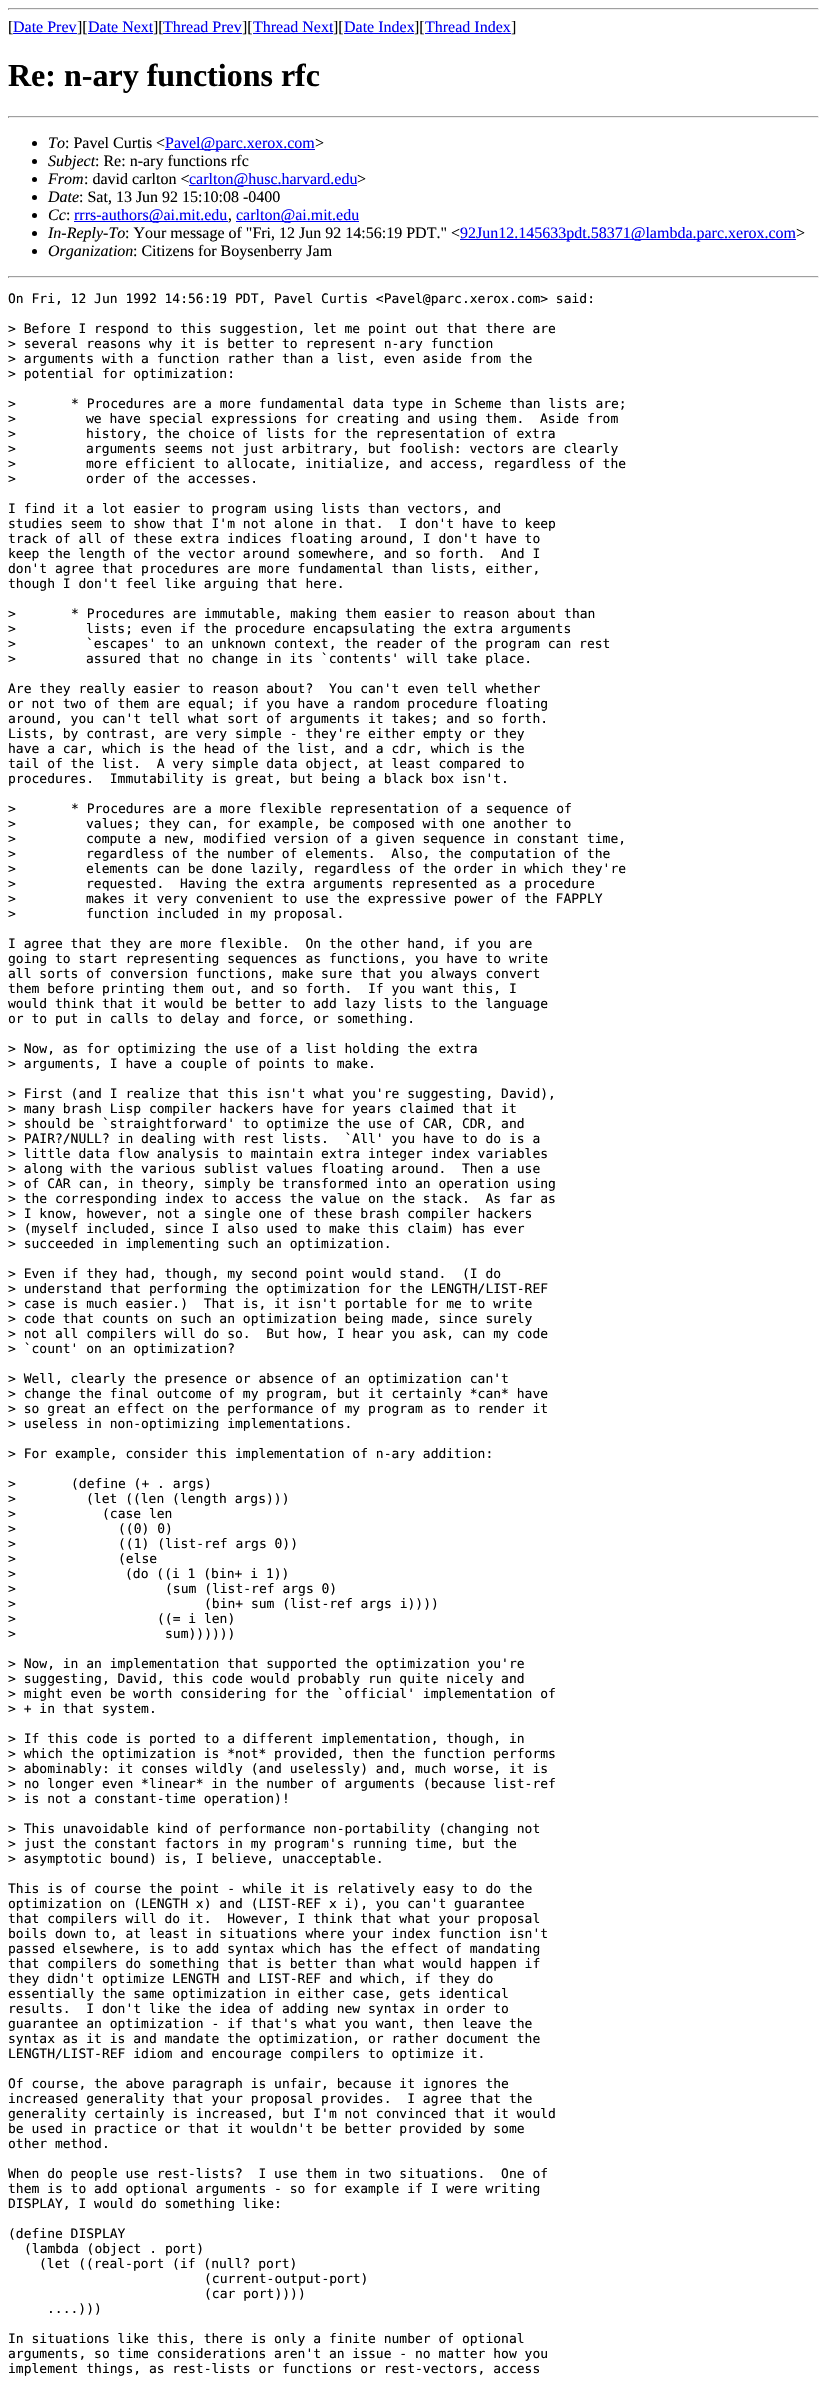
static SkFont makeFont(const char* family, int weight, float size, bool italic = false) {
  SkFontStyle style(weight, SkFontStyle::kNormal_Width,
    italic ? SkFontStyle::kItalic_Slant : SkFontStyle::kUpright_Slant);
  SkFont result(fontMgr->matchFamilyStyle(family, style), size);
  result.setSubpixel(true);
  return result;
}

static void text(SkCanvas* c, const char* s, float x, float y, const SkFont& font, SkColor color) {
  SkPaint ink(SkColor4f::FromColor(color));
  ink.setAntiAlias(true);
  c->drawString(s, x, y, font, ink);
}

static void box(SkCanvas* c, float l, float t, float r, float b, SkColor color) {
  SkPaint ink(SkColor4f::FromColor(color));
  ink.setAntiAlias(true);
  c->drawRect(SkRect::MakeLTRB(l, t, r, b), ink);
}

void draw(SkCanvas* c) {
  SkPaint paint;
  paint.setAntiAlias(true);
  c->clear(0xffffffff);
  box(c, 8, 8, 819, 9, 0xff9f9f9f);
  box(c, 818, 8, 819, 10, 0xffeeeeee);
  box(c, 8, 9, 819, 10, 0xffeeeeee);
  box(c, 8, 8, 9, 10, 0xff9f9f9f);
  SkFont face1 = makeFont("Liberation Serif", 400, 16);
  text(c, "[", 8, 32, face1, 0xff000000);
  text(c, "Date Prev", 13, 32, face1, 0xff0000ee);
  box(c, 13, 33, 77, 34, 0xff0000ee);
  text(c, "][", 77, 32, face1, 0xff000000);
  text(c, "Date Next", 88, 32, face1, 0xff0000ee);
  box(c, 88, 33, 153, 34, 0xff0000ee);
  text(c, "][", 153, 32, face1, 0xff000000);
  text(c, "Thread Prev", 163, 32, face1, 0xff0000ee);
  box(c, 163, 33, 242, 34, 0xff0000ee);
  text(c, "][", 242, 32, face1, 0xff000000);
  text(c, "Thread Next", 253, 32, face1, 0xff0000ee);
  box(c, 253, 33, 333, 34, 0xff0000ee);
  text(c, "][", 333, 32, face1, 0xff000000);
  text(c, "Date Index", 344, 32, face1, 0xff0000ee);
  box(c, 344, 33, 414, 34, 0xff0000ee);
  text(c, "][", 414, 32, face1, 0xff000000);
  text(c, "Thread Index", 425, 32, face1, 0xff0000ee);
  box(c, 425, 33, 511, 34, 0xff0000ee);
  text(c, "]", 511, 32, face1, 0xff000000);
  SkFont face2 = makeFont("Liberation Serif", 700, 32);
  text(c, "Re: n-ary functions rfc", 8, 86, face2, 0xff000000);
  box(c, 8, 116, 819, 117, 0xff9f9f9f);
  box(c, 818, 116, 819, 118, 0xffeeeeee);
  box(c, 8, 117, 819, 118, 0xffeeeeee);
  box(c, 8, 116, 9, 118, 0xff9f9f9f);
  paint.setColor(0xff000000);
  c->drawCircle(34.5f, 143.5f, 2.5f, paint);
  SkFont face3 = makeFont("Liberation Serif", 400, 16, true);
  text(c, "To", 48, 148, face3, 0xff000000);
  text(c, ": Pavel Curtis <", 65, 148, face1, 0xff000000);
  box(c, 165, 149, 315, 150, 0xff0000ee);
  text(c, "Pavel@parc.xerox.com", 165, 148, face1, 0xff0000ee);
  text(c, ">", 315, 148, face1, 0xff000000);
  c->drawCircle(34.5f, 161.5f, 2.5f, paint);
  text(c, "Subject", 48, 166, face3, 0xff000000);
  text(c, ": Re: n-ary functions rfc", 95, 166, face1, 0xff000000);
  c->drawCircle(34.5f, 179.5f, 2.5f, paint);
  text(c, "From", 48, 184, face3, 0xff000000);
  text(c, ": david carlton <", 84, 184, face1, 0xff000000);
  box(c, 189, 185, 357, 186, 0xff0000ee);
  text(c, "carlton@husc.harvard.edu", 189, 184, face1, 0xff0000ee);
  text(c, ">", 357, 184, face1, 0xff000000);
  c->drawCircle(34.5f, 197.5f, 2.5f, paint);
  text(c, "Date", 48, 202, face3, 0xff000000);
  text(c, ": Sat, 13 Jun 92 15:10:08 -0400", 79, 202, face1, 0xff000000);
  c->drawCircle(34.5f, 215.5f, 2.5f, paint);
  text(c, "Cc", 48, 220, face3, 0xff000000);
  text(c, ":", 66, 220, face1, 0xff000000);
  box(c, 74, 221, 228, 222, 0xff0000ee);
  text(c, "rrrs-authors@ai.mit.edu", 74, 220, face1, 0xff0000ee);
  box(c, 236, 221, 359, 222, 0xff0000ee);
  text(c, "carlton@ai.mit.edu", 236, 220, face1, 0xff0000ee);
  text(c, ",", 228, 220, face1, 0xff000000);
  c->drawCircle(34.5f, 233.5f, 2.5f, paint);
  text(c, "In-Reply-To", 48, 238, face3, 0xff000000);
  text(c, ": Your message of \"Fri, 12 Jun 92 14:56:19 PDT.\" <", 125, 238, face1, 0xff000000);
  box(c, 460, 239, 796, 240, 0xff0000ee);
  text(c, "92Jun12.145633pdt.58371@lambda.parc.xerox.com", 460, 238, face1, 0xff0000ee);
  text(c, ">", 796, 238, face1, 0xff000000);
  c->drawCircle(34.5f, 251.5f, 2.5f, paint);
  text(c, "Organization", 48, 256, face3, 0xff000000);
  text(c, ": Citizens for Boysenberry Jam", 133, 256, face1, 0xff000000);
  box(c, 8, 276, 819, 277, 0xff9f9f9f);
  box(c, 818, 276, 819, 278, 0xffeeeeee);
  box(c, 8, 277, 819, 278, 0xffeeeeee);
  box(c, 8, 276, 9, 278, 0xff9f9f9f);
  SkFont face4 = makeFont("DejaVu Sans Mono", 400, 13);
  text(c, "On Fri, 12 Jun 1992 14:56:19 PDT, Pavel Curtis <Pavel@parc.xerox.com> said:", 8, 303, face4, 0xff000000);
  text(c, "> Before I respond to this suggestion, let me point out that there are", 8, 333, face4, 0xff000000);
  text(c, "> several reasons why it is better to represent n-ary function", 8, 348, face4, 0xff000000);
  text(c, "> arguments with a function rather than a list, even aside from the", 8, 363, face4, 0xff000000);
  text(c, "> potential for optimization:", 8, 378, face4, 0xff000000);
  text(c, ">", 8, 408, face4, 0xff000000);
  text(c, "* Procedures are a more fundamental data type in Scheme than lists are;", 71, 408, face4, 0xff000000);
  text(c, ">", 8, 423, face4, 0xff000000);
  text(c, "we have special expressions for creating and using them.  Aside from", 86, 423, face4, 0xff000000);
  text(c, ">", 8, 438, face4, 0xff000000);
  text(c, "history, the choice of lists for the representation of extra", 86, 438, face4, 0xff000000);
  text(c, ">", 8, 453, face4, 0xff000000);
  text(c, "arguments seems not just arbitrary, but foolish: vectors are clearly", 86, 453, face4, 0xff000000);
  text(c, ">", 8, 468, face4, 0xff000000);
  text(c, "more efficient to allocate, initialize, and access, regardless of the", 86, 468, face4, 0xff000000);
  text(c, ">", 8, 483, face4, 0xff000000);
  text(c, "order of the accesses.", 86, 483, face4, 0xff000000);
  text(c, "I find it a lot easier to program using lists than vectors, and", 8, 513, face4, 0xff000000);
  text(c, "studies seem to show that I'm not alone in that.  I don't have to keep", 8, 528, face4, 0xff000000);
  text(c, "track of all of these extra indices floating around, I don't have to", 8, 543, face4, 0xff000000);
  text(c, "keep the length of the vector around somewhere, and so forth.  And I", 8, 558, face4, 0xff000000);
  text(c, "don't agree that procedures are more fundamental than lists, either,", 8, 573, face4, 0xff000000);
  text(c, "though I don't feel like arguing that here.", 8, 588, face4, 0xff000000);
  text(c, ">", 8, 618, face4, 0xff000000);
  text(c, "* Procedures are immutable, making them easier to reason about than", 71, 618, face4, 0xff000000);
  text(c, ">", 8, 633, face4, 0xff000000);
  text(c, "lists; even if the procedure encapsulating the extra arguments", 86, 633, face4, 0xff000000);
  text(c, ">", 8, 648, face4, 0xff000000);
  text(c, "`escapes' to an unknown context, the reader of the program can rest", 86, 648, face4, 0xff000000);
  text(c, ">", 8, 663, face4, 0xff000000);
  text(c, "assured that no change in its `contents' will take place.", 86, 663, face4, 0xff000000);
  text(c, "Are they really easier to reason about?  You can't even tell whether", 8, 693, face4, 0xff000000);
  text(c, "or not two of them are equal; if you have a random procedure floating", 8, 708, face4, 0xff000000);
  text(c, "around, you can't tell what sort of arguments it takes; and so forth.", 8, 723, face4, 0xff000000);
  text(c, "Lists, by contrast, are very simple - they're either empty or they", 8, 738, face4, 0xff000000);
  text(c, "have a car, which is the head of the list, and a cdr, which is the", 8, 753, face4, 0xff000000);
  text(c, "tail of the list.  A very simple data object, at least compared to", 8, 768, face4, 0xff000000);
  text(c, "procedures.  Immutability is great, but being a black box isn't.", 8, 783, face4, 0xff000000);
  text(c, ">", 8, 813, face4, 0xff000000);
  text(c, "* Procedures are a more flexible representation of a sequence of", 71, 813, face4, 0xff000000);
  text(c, ">", 8, 828, face4, 0xff000000);
  text(c, "values; they can, for example, be composed with one another to", 86, 828, face4, 0xff000000);
  text(c, ">", 8, 843, face4, 0xff000000);
  text(c, "compute a new, modified version of a given sequence in constant time,", 86, 843, face4, 0xff000000);
  text(c, ">", 8, 858, face4, 0xff000000);
  text(c, "regardless of the number of elements.  Also, the computation of the", 86, 858, face4, 0xff000000);
  text(c, ">", 8, 873, face4, 0xff000000);
  text(c, "elements can be done lazily, regardless of the order in which they're", 86, 873, face4, 0xff000000);
  text(c, ">", 8, 888, face4, 0xff000000);
  text(c, "requested.  Having the extra arguments represented as a procedure", 86, 888, face4, 0xff000000);
  text(c, ">", 8, 903, face4, 0xff000000);
  text(c, "makes it very convenient to use the expressive power of the FAPPLY", 86, 903, face4, 0xff000000);
  text(c, ">", 8, 918, face4, 0xff000000);
  text(c, "function included in my proposal.", 86, 918, face4, 0xff000000);
  text(c, "I agree that they are more flexible.  On the other hand, if you are", 8, 948, face4, 0xff000000);
  text(c, "going to start representing sequences as functions, you have to write", 8, 963, face4, 0xff000000);
  text(c, "all sorts of conversion functions, make sure that you always convert", 8, 978, face4, 0xff000000);
  text(c, "them before printing them out, and so forth.  If you want this, I", 8, 993, face4, 0xff000000);
  text(c, "would think that it would be better to add lazy lists to the language", 8, 1008, face4, 0xff000000);
  text(c, "or to put in calls to delay and force, or something.", 8, 1023, face4, 0xff000000);
  text(c, "> Now, as for optimizing the use of a list holding the extra", 8, 1053, face4, 0xff000000);
  text(c, "> arguments, I have a couple of points to make.", 8, 1068, face4, 0xff000000);
  text(c, "> First (and I realize that this isn't what you're suggesting, David),", 8, 1098, face4, 0xff000000);
  text(c, "> many brash Lisp compiler hackers have for years claimed that it", 8, 1113, face4, 0xff000000);
  text(c, "> should be `straightforward' to optimize the use of CAR, CDR, and", 8, 1128, face4, 0xff000000);
  text(c, "> PAIR?/NULL? in dealing with rest lists.  `All' you have to do is a", 8, 1143, face4, 0xff000000);
  text(c, "> little data flow analysis to maintain extra integer index variables", 8, 1158, face4, 0xff000000);
  text(c, "> along with the various sublist values floating around.  Then a use", 8, 1173, face4, 0xff000000);
  text(c, "> of CAR can, in theory, simply be transformed into an operation using", 8, 1188, face4, 0xff000000);
  text(c, "> the corresponding index to access the value on the stack.  As far as", 8, 1203, face4, 0xff000000);
  text(c, "> I know, however, not a single one of these brash compiler hackers", 8, 1218, face4, 0xff000000);
  text(c, "> (myself included, since I also used to make this claim) has ever", 8, 1233, face4, 0xff000000);
  text(c, "> succeeded in implementing such an optimization.", 8, 1248, face4, 0xff000000);
  text(c, "> Even if they had, though, my second point would stand.  (I do", 8, 1278, face4, 0xff000000);
  text(c, "> understand that performing the optimization for the LENGTH/LIST-REF", 8, 1293, face4, 0xff000000);
  text(c, "> case is much easier.)  That is, it isn't portable for me to write", 8, 1308, face4, 0xff000000);
  text(c, "> code that counts on such an optimization being made, since surely", 8, 1323, face4, 0xff000000);
  text(c, "> not all compilers will do so.  But how, I hear you ask, can my code", 8, 1338, face4, 0xff000000);
  text(c, "> `count' on an optimization?", 8, 1353, face4, 0xff000000);
  text(c, "> Well, clearly the presence or absence of an optimization can't", 8, 1383, face4, 0xff000000);
  text(c, "> change the final outcome of my program, but it certainly *can* have", 8, 1398, face4, 0xff000000);
  text(c, "> so great an effect on the performance of my program as to render it", 8, 1413, face4, 0xff000000);
  text(c, "> useless in non-optimizing implementations.", 8, 1428, face4, 0xff000000);
  text(c, "> For example, consider this implementation of n-ary addition:", 8, 1458, face4, 0xff000000);
  text(c, ">", 8, 1488, face4, 0xff000000);
  text(c, "(define (+ . args)", 71, 1488, face4, 0xff000000);
  text(c, ">", 8, 1503, face4, 0xff000000);
  text(c, "(let ((len (length args)))", 86, 1503, face4, 0xff000000);
  text(c, ">", 8, 1518, face4, 0xff000000);
  text(c, "(case len", 102, 1518, face4, 0xff000000);
  text(c, ">", 8, 1533, face4, 0xff000000);
  text(c, "((0) 0)", 118, 1533, face4, 0xff000000);
  text(c, ">", 8, 1548, face4, 0xff000000);
  text(c, "((1) (list-ref args 0))", 118, 1548, face4, 0xff000000);
  text(c, ">", 8, 1563, face4, 0xff000000);
  text(c, "(else", 118, 1563, face4, 0xff000000);
  text(c, ">", 8, 1578, face4, 0xff000000);
  text(c, "(do ((i 1 (bin+ i 1))", 125, 1578, face4, 0xff000000);
  text(c, ">", 8, 1593, face4, 0xff000000);
  text(c, "(sum (list-ref args 0)", 165, 1593, face4, 0xff000000);
  text(c, ">", 8, 1608, face4, 0xff000000);
  text(c, "(bin+ sum (list-ref args i))))", 204, 1608, face4, 0xff000000);
  text(c, ">", 8, 1623, face4, 0xff000000);
  text(c, "((= i len)", 157, 1623, face4, 0xff000000);
  text(c, ">", 8, 1638, face4, 0xff000000);
  text(c, "sum))))))", 165, 1638, face4, 0xff000000);
  text(c, "> Now, in an implementation that supported the optimization you're", 8, 1668, face4, 0xff000000);
  text(c, "> suggesting, David, this code would probably run quite nicely and", 8, 1683, face4, 0xff000000);
  text(c, "> might even be worth considering for the `official' implementation of", 8, 1698, face4, 0xff000000);
  text(c, "> + in that system.", 8, 1713, face4, 0xff000000);
  text(c, "> If this code is ported to a different implementation, though, in", 8, 1743, face4, 0xff000000);
  text(c, "> which the optimization is *not* provided, then the function performs", 8, 1758, face4, 0xff000000);
  text(c, "> abominably: it conses wildly (and uselessly) and, much worse, it is", 8, 1773, face4, 0xff000000);
  text(c, "> no longer even *linear* in the number of arguments (because list-ref", 8, 1788, face4, 0xff000000);
  text(c, "> is not a constant-time operation)!", 8, 1803, face4, 0xff000000);
  text(c, "> This unavoidable kind of performance non-portability (changing not", 8, 1833, face4, 0xff000000);
  text(c, "> just the constant factors in my program's running time, but the", 8, 1848, face4, 0xff000000);
  text(c, "> asymptotic bound) is, I believe, unacceptable.", 8, 1863, face4, 0xff000000);
  text(c, "This is of course the point - while it is relatively easy to do the", 8, 1893, face4, 0xff000000);
  text(c, "optimization on (LENGTH x) and (LIST-REF x i), you can't guarantee", 8, 1908, face4, 0xff000000);
  text(c, "that compilers will do it.  However, I think that what your proposal", 8, 1923, face4, 0xff000000);
  text(c, "boils down to, at least in situations where your index function isn't", 8, 1938, face4, 0xff000000);
  text(c, "passed elsewhere, is to add syntax which has the effect of mandating", 8, 1953, face4, 0xff000000);
  text(c, "that compilers do something that is better than what would happen if", 8, 1968, face4, 0xff000000);
  text(c, "they didn't optimize LENGTH and LIST-REF and which, if they do", 8, 1983, face4, 0xff000000);
  text(c, "essentially the same optimization in either case, gets identical", 8, 1998, face4, 0xff000000);
  text(c, "results.  I don't like the idea of adding new syntax in order to", 8, 2013, face4, 0xff000000);
  text(c, "guarantee an optimization - if that's what you want, then leave the", 8, 2028, face4, 0xff000000);
  text(c, "syntax as it is and mandate the optimization, or rather document the", 8, 2043, face4, 0xff000000);
  text(c, "LENGTH/LIST-REF idiom and encourage compilers to optimize it.", 8, 2058, face4, 0xff000000);
  text(c, "Of course, the above paragraph is unfair, because it ignores the", 8, 2088, face4, 0xff000000);
  text(c, "increased generality that your proposal provides.  I agree that the", 8, 2103, face4, 0xff000000);
  text(c, "generality certainly is increased, but I'm not convinced that it would", 8, 2118, face4, 0xff000000);
  text(c, "be used in practice or that it wouldn't be better provided by some", 8, 2133, face4, 0xff000000);
  text(c, "other method.", 8, 2148, face4, 0xff000000);
  text(c, "When do people use rest-lists?  I use them in two situations.  One of", 8, 2178, face4, 0xff000000);
  text(c, "them is to add optional arguments - so for example if I were writing", 8, 2193, face4, 0xff000000);
  text(c, "DISPLAY, I would do something like:", 8, 2208, face4, 0xff000000);
  text(c, "(define DISPLAY", 8, 2238, face4, 0xff000000);
  text(c, "(lambda (object . port)", 24, 2253, face4, 0xff000000);
  text(c, "(let ((real-port (if (null? port)", 39, 2268, face4, 0xff000000);
  text(c, "(current-output-port)", 204, 2283, face4, 0xff000000);
  text(c, "(car port))))", 204, 2298, face4, 0xff000000);
  text(c, "....)))", 47, 2313, face4, 0xff000000);
  text(c, "In situations like this, there is only a finite number of optional", 8, 2343, face4, 0xff000000);
  text(c, "arguments, so time considerations aren't an issue - no matter how you", 8, 2358, face4, 0xff000000);
  text(c, "implement things, as rest-lists or functions or rest-vectors, access", 8, 2373, face4, 0xff000000);
}
